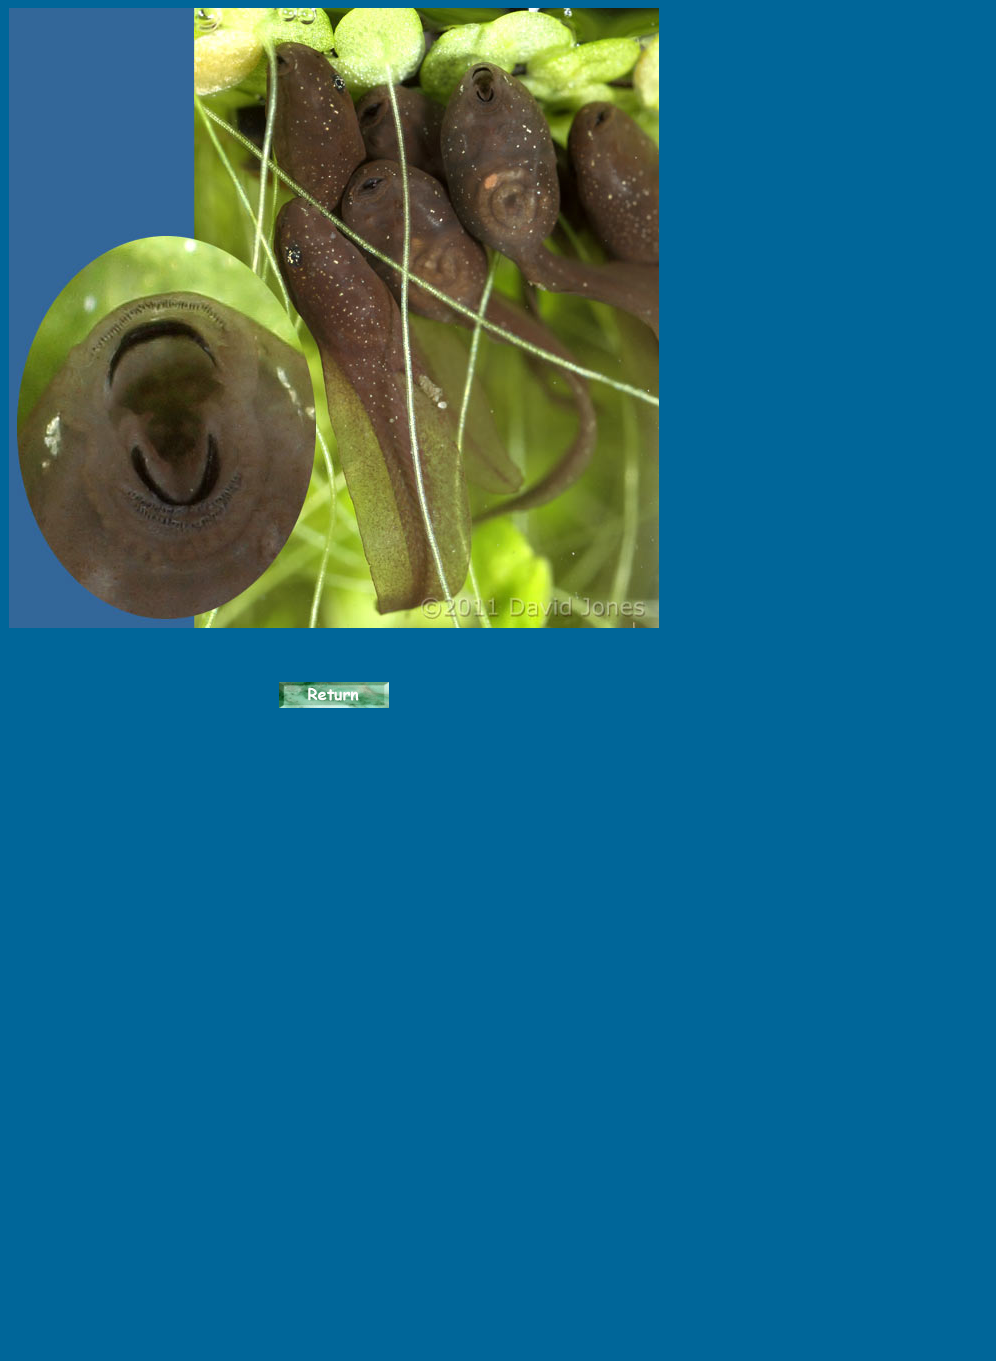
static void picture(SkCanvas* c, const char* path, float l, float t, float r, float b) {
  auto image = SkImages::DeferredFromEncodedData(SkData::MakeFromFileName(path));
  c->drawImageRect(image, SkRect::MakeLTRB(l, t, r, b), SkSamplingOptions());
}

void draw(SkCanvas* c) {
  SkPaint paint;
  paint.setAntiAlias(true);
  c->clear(0xff006699);
  picture(c, "img_01.png", 9, 8, 659, 628);
  picture(c, "img_02.png", 279, 682, 389, 708);
}
